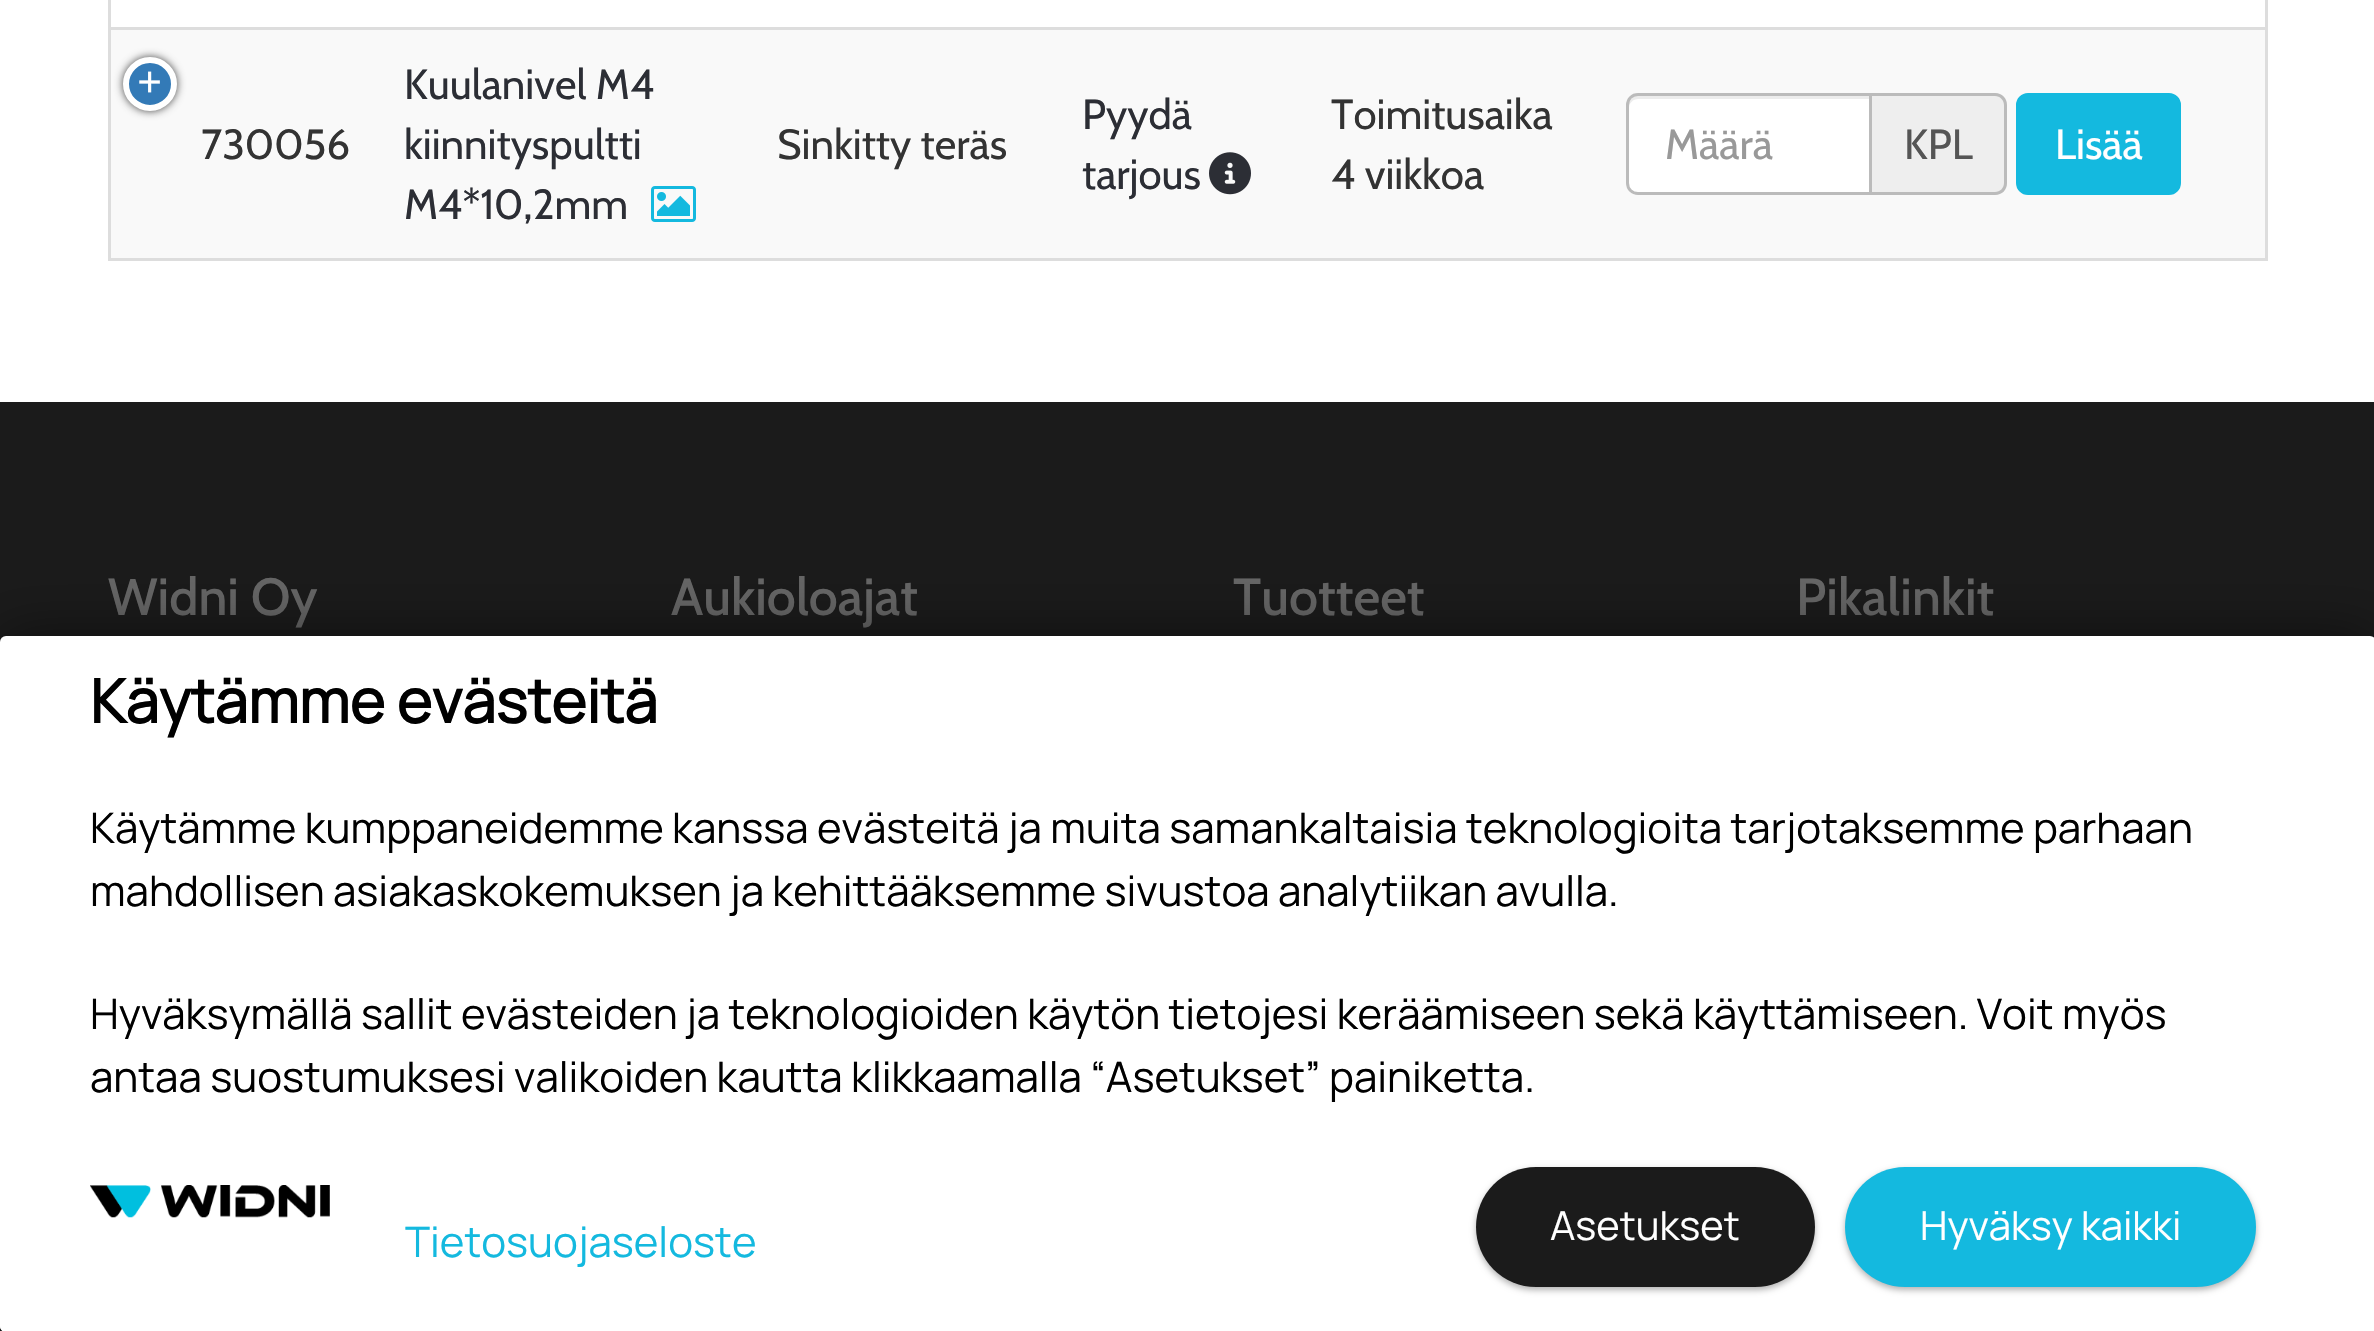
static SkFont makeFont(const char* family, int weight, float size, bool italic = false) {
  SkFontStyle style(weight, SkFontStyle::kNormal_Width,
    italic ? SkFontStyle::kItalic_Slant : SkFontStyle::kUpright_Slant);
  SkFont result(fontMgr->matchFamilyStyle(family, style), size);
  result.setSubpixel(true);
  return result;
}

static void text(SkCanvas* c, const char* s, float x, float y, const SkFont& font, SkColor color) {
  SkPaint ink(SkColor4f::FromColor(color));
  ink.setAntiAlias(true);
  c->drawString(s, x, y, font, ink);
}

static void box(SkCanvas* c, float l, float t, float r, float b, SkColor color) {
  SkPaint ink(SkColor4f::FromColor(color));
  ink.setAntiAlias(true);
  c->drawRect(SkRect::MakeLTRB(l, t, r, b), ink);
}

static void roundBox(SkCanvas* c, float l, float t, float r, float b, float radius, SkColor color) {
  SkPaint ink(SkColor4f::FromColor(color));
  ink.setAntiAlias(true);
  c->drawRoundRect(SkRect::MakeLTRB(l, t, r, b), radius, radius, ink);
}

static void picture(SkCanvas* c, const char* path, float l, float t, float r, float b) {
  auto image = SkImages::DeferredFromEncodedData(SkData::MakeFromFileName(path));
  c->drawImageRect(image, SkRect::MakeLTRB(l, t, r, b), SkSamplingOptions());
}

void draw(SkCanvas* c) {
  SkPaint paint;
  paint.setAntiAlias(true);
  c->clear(0xffffffff);
  paint.setStyle(SkPaint::kStroke_Style);
  paint.setStrokeWidth(3);
  paint.setColor(0xffdddddd);
  c->drawRect(SkRect::MakeLTRB(109.5f, -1.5f, 2266.5f, 259.5f), paint);
  box(c, 111, 30, 2265, 258, 0xfff9f9f9);
  paint.setStyle(SkPaint::kFill_Style);
  paint.setColor(0xff444444);
  paint.setMaskFilter(SkMaskFilter::MakeBlur(kNormal_SkBlurStyle, 4.5f));
  c->drawRoundRect(SkRect::MakeLTRB(123, 57, 177, 111), 27, 27, paint);
  paint.setMaskFilter(nullptr);
  paint.setColor(0xff337ab7);
  c->drawCircle(150, 84, 24, paint);
  paint.setStyle(SkPaint::kStroke_Style);
  paint.setStrokeWidth(6);
  paint.setColor(0xffffffff);
  c->drawCircle(150, 84, 24, paint);
  SkFont face1 = makeFont("Liberation Mono", 400, 42);
  text(c, "+", 137, 96, face1, 0xffffffff);
  SkFont face2 = makeFont("Cabin", 400, 42);
  text(c, "730056", 201, 159, face2, 0xff333333);
  box(c, 111, 27, 2265, 30, 0xffdddddd);
  text(c, "Kuulanivel M4", 404, 99, face2, 0xff2c2e35);
  text(c, "kiinnityspultti", 404, 159, face2, 0xff2c2e35);
  text(c, "M4*10,2mm", 404, 219, face2, 0xff2c2e35);
  picture(c, "img_01.png", 651, 186, 696, 222);
  text(c, "Sinkitty teräs", 777, 159, face2, 0xff333333);
  text(c, "Pyydä", 1082, 129, face2, 0xff2c2e35);
  text(c, "tarjous", 1082, 189, face2, 0xff2c2e35);
  picture(c, "img_02.png", 1209, 152, 1251, 195);
  text(c, "Toimitusaika", 1331, 129, face2, 0xff333333);
  text(c, "4 viikkoa", 1331, 189, face2, 0xff333333);
  paint.setStyle(SkPaint::kFill_Style);
  c->drawPath(SkPathBuilder().moveTo(1638, 93).lineTo(1872, 93).lineTo(1872, 195).lineTo(1638, 195).cubicTo(1631.5f, 195, 1626, 189.5f, 1626, 183).lineTo(1626, 105).cubicTo(1626, 98.5f, 1631.5f, 93, 1638, 93).close().detach(), paint);
  paint.setColor(0xffececec);
  c->drawPath(SkPathBuilder().moveTo(1638, 99).lineTo(1869, 99).lineTo(1869, 96).lineTo(1638, 96).cubicTo(1633, 96, 1629, 100, 1629, 105).lineTo(1629, 108).cubicTo(1629, 103, 1633, 99, 1638, 99).close().detach(), paint);
  paint.setStyle(SkPaint::kStroke_Style);
  paint.setStrokeWidth(3);
  paint.setColor(0xffbbbbbb);
  c->drawPath(SkPathBuilder().moveTo(1638, 94.5f).lineTo(1870.5f, 94.5f).lineTo(1870.5f, 193.5f).lineTo(1638, 193.5f).cubicTo(1632, 193.5f, 1627.5f, 189, 1627.5f, 183).lineTo(1627.5f, 105).cubicTo(1627.5f, 99, 1632, 94.5f, 1638, 94.5f).close().detach(), paint);
  text(c, "Määrä", 1665, 159, face2, 0xff999999);
  paint.setStyle(SkPaint::kFill_Style);
  paint.setColor(0xffeeeeee);
  c->drawPath(SkPathBuilder().moveTo(1872, 93).lineTo(1995, 93).cubicTo(2001.5f, 93, 2007, 98.5f, 2007, 105).lineTo(2007, 183).cubicTo(2007, 189.5f, 2001.5f, 195, 1995, 195).lineTo(1872, 195).close().detach(), paint);
  paint.setColor(0xffbbbbbb);
  c->drawPath(SkPathBuilder(SkPathFillType::kEvenOdd).moveTo(1872, 93).lineTo(1995, 93).cubicTo(2002, 93, 2007, 98, 2007, 105).lineTo(2007, 183).cubicTo(2007, 190, 2002, 195, 1995, 195).lineTo(1872, 195).close().moveTo(1872, 96).lineTo(1995, 96).cubicTo(2000, 96, 2004, 100, 2004, 105).lineTo(2004, 183).cubicTo(2004, 188, 2000, 192, 1995, 192).lineTo(1872, 192).close().detach(), paint);
  text(c, "KPL", 1904, 159, face2, 0xff555555);
  paint.setColor(0xff14b9df);
  c->drawRoundRect(SkRect::MakeLTRB(2017.5f, 94.5f, 2179.5f, 193.5f), 10.5f, 10.5f, paint);
  paint.setStyle(SkPaint::kStroke_Style);
  c->drawRoundRect(SkRect::MakeLTRB(2017.5f, 94.5f, 2179.5f, 193.5f), 10.5f, 10.5f, paint);
  text(c, "Lisää", 2055, 159, face2, 0xffffffff);
  box(c, 0, 402, 2374, 1331, 0xff1b1b1b);
  SkFont face3 = makeFont("Cabin", 500, 52);
  text(c, "Widni Oy", 108, 615, face3, 0xff666666);
  text(c, "Aukioloajat", 671, 615, face3, 0xff666666);
  text(c, "Tuotteet", 1233, 615, face3, 0xff666666);
  text(c, "Pikalinkit", 1796, 615, face3, 0xff666666);
  paint.setStyle(SkPaint::kFill_Style);
  paint.setColor(0x80000000);
  paint.setMaskFilter(SkMaskFilter::MakeBlur(kNormal_SkBlurStyle, 30));
  c->drawRoundRect(SkRect::MakeLTRB(0, 636, 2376, 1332), 6, 6, paint);
  paint.setMaskFilter(nullptr);
  roundBox(c, 0, 636, 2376, 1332, 6, 0xffffffff);
  SkFont face4 = makeFont("Manrope", 700, 60);
  text(c, "Käytämme evästeitä", 90, 723, face4, 0xff000000);
  SkFont face5 = makeFont("Manrope", 200, 42);
  text(c, "Käytämme kumppaneidemme kanssa evästeitä ja muita samankaltaisia teknologioita tarjotaksemme parhaan", 90, 843, face5, 0xff000000);
  text(c, "mahdollisen asiakaskokemuksen ja kehittääksemme sivustoa analytiikan avulla.", 90, 906, face5, 0xff000000);
  text(c, "Hyväksymällä sallit evästeiden ja teknologioiden käytön tietojesi keräämiseen sekä käyttämiseen. Voit myös", 90, 1029, face5, 0xff000000);
  text(c, "antaa suostumuksesi valikoiden kautta klikkaamalla “Asetukset” painiketta.", 90, 1092, face5, 0xff000000);
  paint.setColor(0xffffffff);
  c->drawPath(SkPathBuilder().moveTo(0, 1122).lineTo(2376, 1122).lineTo(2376, 1326).cubicTo(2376, 1329.5f, 2373.5f, 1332, 2370, 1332).lineTo(6, 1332).cubicTo(2.5f, 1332, 0, 1329.5f, 0, 1326).close().detach(), paint);
  picture(c, "img_03.png", 90, 1185, 330, 1218);
  text(c, "Tietosuojaseloste", 405, 1257, face5, 0xff14b9df);
  paint.setColor(0x4d000000);
  paint.setMaskFilter(SkMaskFilter::MakeBlur(kNormal_SkBlurStyle, 3));
  c->drawRoundRect(SkRect::MakeLTRB(1476, 1170, 1815, 1290), 60, 60, paint);
  paint.setMaskFilter(nullptr);
  roundBox(c, 1476, 1167, 1815, 1287, 60, 0xff1b1b1b);
  SkFont face6 = makeFont("Manrope", 200, 40);
  text(c, "Asetukset", 1550, 1240, face6, 0xffffffff);
  paint.setMaskFilter(SkMaskFilter::MakeBlur(kNormal_SkBlurStyle, 3));
  c->drawRoundRect(SkRect::MakeLTRB(1845, 1170, 2256, 1290), 60, 60, paint);
  paint.setMaskFilter(nullptr);
  roundBox(c, 1845, 1167, 2256, 1287, 60, 0xff14b9df);
  text(c, "Hyväksy kaikki", 1920, 1240, face6, 0xffffffff);
}
